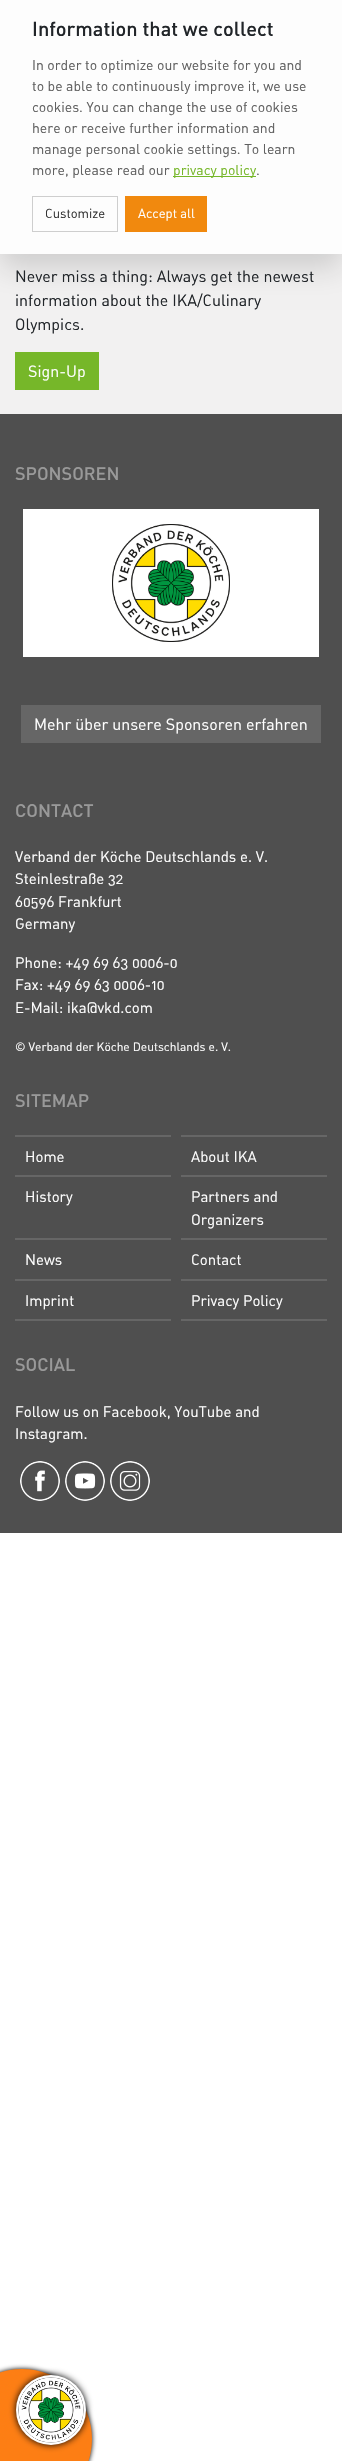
static SkFont makeFont(const char* family, int weight, float size, bool italic = false) {
  SkFontStyle style(weight, SkFontStyle::kNormal_Width,
    italic ? SkFontStyle::kItalic_Slant : SkFontStyle::kUpright_Slant);
  SkFont result(fontMgr->matchFamilyStyle(family, style), size);
  result.setSubpixel(true);
  return result;
}

static void text(SkCanvas* c, const char* s, float x, float y, const SkFont& font, SkColor color) {
  SkPaint ink(SkColor4f::FromColor(color));
  ink.setAntiAlias(true);
  c->drawString(s, x, y, font, ink);
}

static void box(SkCanvas* c, float l, float t, float r, float b, SkColor color) {
  SkPaint ink(SkColor4f::FromColor(color));
  ink.setAntiAlias(true);
  c->drawRect(SkRect::MakeLTRB(l, t, r, b), ink);
}

static void picture(SkCanvas* c, const char* path, float l, float t, float r, float b) {
  auto image = SkImages::DeferredFromEncodedData(SkData::MakeFromFileName(path));
  c->drawImageRect(image, SkRect::MakeLTRB(l, t, r, b), SkSamplingOptions());
}

void draw(SkCanvas* c) {
  SkPaint paint;
  paint.setAntiAlias(true);
  c->clear(0xffffffff);
  box(c, 0, 254, 342, 414, 0xfff2f1f1);
  paint.setColor(0x26000000);
  paint.setMaskFilter(SkMaskFilter::MakeBlur(kNormal_SkBlurStyle, 14));
  c->drawRect(SkRect::MakeLTRB(0, 14, 342, 268), paint);
  paint.setMaskFilter(nullptr);
  box(c, 0, 0, 342, 254, 0xfffdfdfd);
  SkFont face1 = makeFont("DIN", 500, 20);
  text(c, "Information that we collect", 32, 36, face1, 0xff212529);
  SkFont face2 = makeFont("DIN", 400, 14);
  text(c, "In order to optimize our website for you and", 32, 70, face2, 0xff606060);
  text(c, "to be able to continuously improve it, we use", 32, 91, face2, 0xff606060);
  text(c, "cookies. You can change the use of cookies", 32, 112, face2, 0xff606060);
  text(c, "here or receive further information and", 32, 133, face2, 0xff606060);
  text(c, "manage personal cookie settings. To learn", 32, 154, face2, 0xff606060);
  text(c, "more, please read our", 32, 175, face2, 0xff606060);
  box(c, 173, 176, 256, 177, 0xff76b729);
  text(c, "privacy policy", 173, 175, face2, 0xff76b729);
  text(c, ".", 256, 175, face2, 0xff606060);
  paint.setStyle(SkPaint::kStroke_Style);
  paint.setStrokeWidth(1);
  paint.setColor(0xffcecece);
  c->drawRect(SkRect::MakeLTRB(32.5f, 196.5f, 117.5f, 231.5f), paint);
  SkFont face3 = makeFont("DIN", 400, 13);
  text(c, "Customize", 45, 218, face3, 0xff333333);
  box(c, 125, 196, 207, 232, 0xfff1890e);
  text(c, "Accept all", 138, 218, face3, 0xffffffff);
  SkFont face4 = makeFont("DIN", 400, 16);
  text(c, "Never miss a thing: Always get the newest", 15, 282, face4, 0xff212529);
  text(c, "information about the IKA/Culinary", 15, 306, face4, 0xff212529);
  text(c, "Olympics.", 15, 330, face4, 0xff212529);
  box(c, 15, 352, 99, 390, 0xff76b729);
  text(c, "Sign-Up", 28, 377, face4, 0xffffffff);
  box(c, 0, 414, 342, 1533, 0xff4f4f4f);
  SkFont face5 = makeFont("DIN", 500, 18);
  text(c, "SPONSOREN", 15, 480, face5, 0xff999999);
  picture(c, "img_01.png", 23, 509, 319, 657);
  box(c, 21, 705, 321, 743, 0xff666666);
  text(c, "Mehr über unsere Sponsoren erfahren", 34, 730, face4, 0xffffffff);
  text(c, "CONTACT", 15, 817, face5, 0xff999999);
  SkFont face6 = makeFont("DIN", 400, 15);
  text(c, "Verband der Köche Deutschlands e. V.", 15, 862, face6, 0xffffffff);
  text(c, "Steinlestraße 32", 15, 884, face6, 0xffffffff);
  text(c, "60596 Frankfurt", 15, 907, face6, 0xffffffff);
  text(c, "Germany", 15, 929, face6, 0xffffffff);
  text(c, "Phone: +49 69 63 0006-0", 15, 968, face6, 0xffffffff);
  text(c, "Fax: +49 69 63 0006-10", 15, 990, face6, 0xffffffff);
  text(c, "E-Mail: ika@vkd.com", 15, 1013, face6, 0xffffffff);
  SkFont face7 = makeFont("DIN", 400, 12);
  text(c, "© Verband der Köche Deutschlands e. V.", 15, 1051, face7, 0xffffffff);
  text(c, "SITEMAP", 15, 1107, face5, 0xff999999);
  box(c, 15, 1135, 171, 1137, 0xff666666);
  text(c, "Home", 25, 1162, face6, 0xffffffff);
  box(c, 181, 1135, 327, 1137, 0xff666666);
  text(c, "About IKA", 191, 1162, face6, 0xffffffff);
  box(c, 15, 1175, 171, 1177, 0xff666666);
  text(c, "History", 25, 1202, face6, 0xffffffff);
  box(c, 181, 1175, 327, 1177, 0xff666666);
  text(c, "Partners and", 191, 1202, face6, 0xffffffff);
  text(c, "Organizers", 191, 1225, face6, 0xffffffff);
  box(c, 15, 1238, 171, 1240, 0xff666666);
  text(c, "News", 25, 1265, face6, 0xffffffff);
  box(c, 181, 1238, 327, 1240, 0xff666666);
  text(c, "Contact", 191, 1265, face6, 0xffffffff);
  box(c, 15, 1279, 171, 1281, 0xff666666);
  box(c, 15, 1319, 171, 1321, 0xff666666);
  text(c, "Imprint", 25, 1306, face6, 0xffffffff);
  box(c, 181, 1279, 327, 1281, 0xff666666);
  box(c, 181, 1319, 327, 1321, 0xff666666);
  text(c, "Privacy Policy", 191, 1306, face6, 0xffffffff);
  text(c, "SOCIAL", 15, 1371, face5, 0xff999999);
  text(c, "Follow us on Facebook, YouTube and", 15, 1417, face6, 0xffffffff);
  text(c, "Instagram.", 15, 1439, face6, 0xffffffff);
  picture(c, "img_02.png", 20, 1461, 60, 1501);
  picture(c, "img_03.png", 65, 1461, 105, 1501);
  picture(c, "img_04.png", 110, 1461, 150, 1501);
  paint.setStyle(SkPaint::kFill_Style);
  paint.setColor(0xff000000);
  paint.setMaskFilter(SkMaskFilter::MakeBlur(kNormal_SkBlurStyle, 2.5f));
  c->drawRoundRect(SkRect::MakeLTRB(-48, 2369, 92, 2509), 70, 70, paint);
  paint.setMaskFilter(nullptr);
  paint.setColor(0xfffd7e14);
  c->drawCircle(22, 2439, 70, paint);
  paint.setColor(0xff000000);
  paint.setMaskFilter(SkMaskFilter::MakeBlur(kNormal_SkBlurStyle, 3.5f));
  c->drawRoundRect(SkRect::MakeLTRB(16, 2375, 86, 2445), 35, 35, paint);
  paint.setMaskFilter(nullptr);
  paint.setColor(0xffffffff);
  c->drawCircle(51, 2410, 35, paint);
  picture(c, "img_05.png", 18, 2377, 84, 2443);
}
